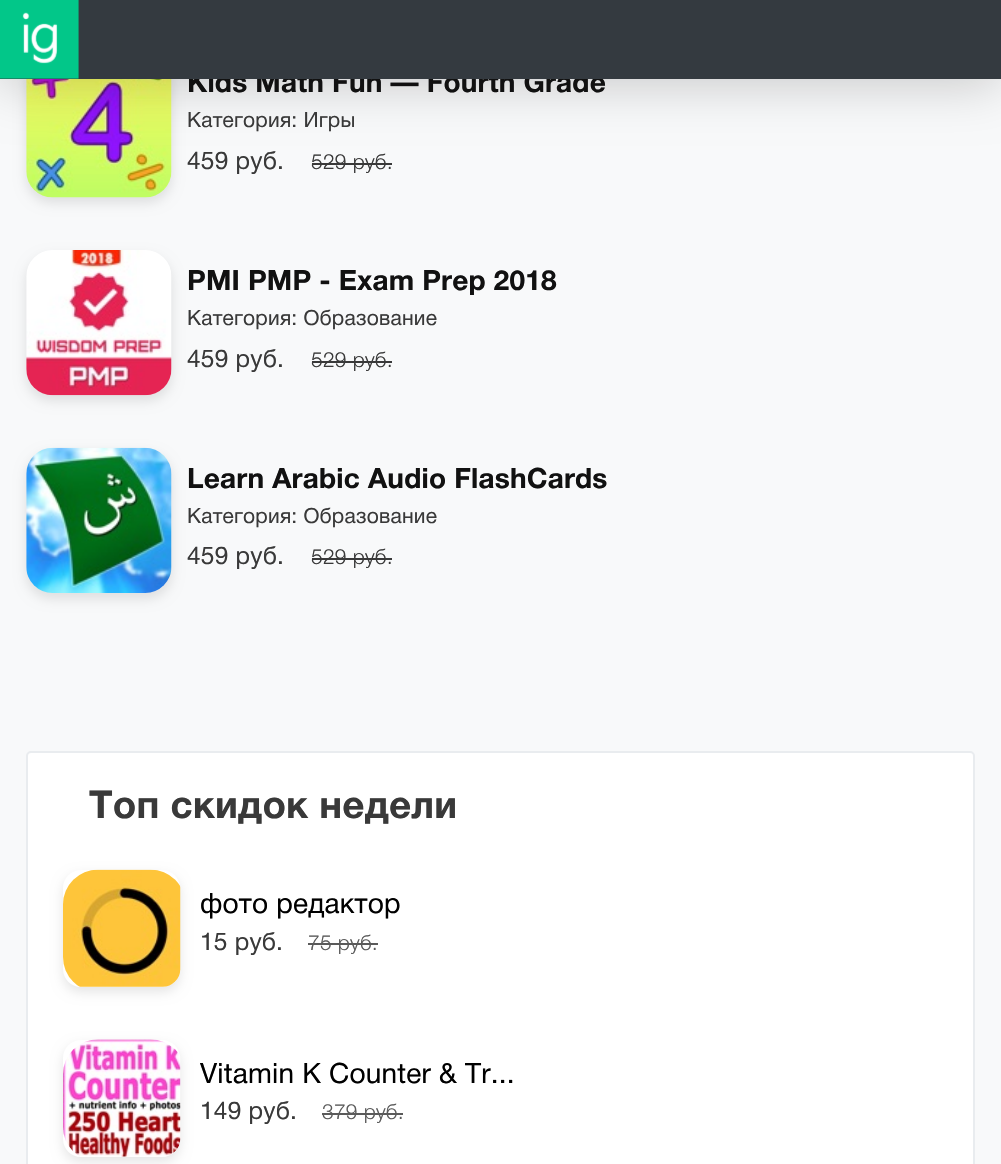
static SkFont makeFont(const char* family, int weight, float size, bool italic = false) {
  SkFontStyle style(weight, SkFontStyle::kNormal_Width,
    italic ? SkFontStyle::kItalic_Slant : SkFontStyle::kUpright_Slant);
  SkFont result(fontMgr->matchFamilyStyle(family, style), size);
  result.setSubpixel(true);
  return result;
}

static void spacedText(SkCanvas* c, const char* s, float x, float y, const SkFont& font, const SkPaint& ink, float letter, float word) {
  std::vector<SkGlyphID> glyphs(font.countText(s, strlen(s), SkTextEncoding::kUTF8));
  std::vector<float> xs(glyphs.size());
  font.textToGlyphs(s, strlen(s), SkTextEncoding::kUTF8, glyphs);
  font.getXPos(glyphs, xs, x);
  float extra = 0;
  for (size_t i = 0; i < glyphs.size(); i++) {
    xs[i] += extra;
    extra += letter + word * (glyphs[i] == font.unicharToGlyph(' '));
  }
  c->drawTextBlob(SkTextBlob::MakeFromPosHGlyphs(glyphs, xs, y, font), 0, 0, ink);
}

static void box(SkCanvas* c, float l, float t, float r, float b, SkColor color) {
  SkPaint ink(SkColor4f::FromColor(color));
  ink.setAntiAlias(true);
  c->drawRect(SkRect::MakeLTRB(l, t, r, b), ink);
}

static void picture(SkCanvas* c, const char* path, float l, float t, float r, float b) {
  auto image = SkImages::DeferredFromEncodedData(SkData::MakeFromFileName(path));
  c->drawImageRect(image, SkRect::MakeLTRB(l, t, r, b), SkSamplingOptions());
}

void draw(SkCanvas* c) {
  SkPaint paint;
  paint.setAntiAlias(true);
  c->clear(0xfff8f9fa);
  paint.setColor(0x1a000000);
  paint.setMaskFilter(SkMaskFilter::MakeBlur(kNormal_SkBlurStyle, 6));
  c->drawRoundRect(SkRect::MakeLTRB(26, 58, 172, 203), 26, 26, paint);
  paint.setMaskFilter(nullptr);
  picture(c, "img_02.png", 26, 79, 172, 198);
  paint.setColor(0x33000000);
  paint.setMaskFilter(SkMaskFilter::MakeBlur(kNormal_SkBlurStyle, 26));
  c->drawRect(SkRect::MakeLTRB(0, 5, 1001, 84), paint);
  paint.setMaskFilter(nullptr);
  SkFont face1 = makeFont("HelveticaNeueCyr", 700, 28);
  paint.setColor(0xff111111);
  spacedText(c, "Kids Math Fun — Fourth Grade", 187, 92, face1, paint, 0.2f, 0);
  box(c, 0, 0, 1001, 79, 0xff343a40);
  picture(c, "img_01.png", 0, 0, 79, 79);
  SkFont face2 = makeFont("HelveticaNeueCyr", 400, 21);
  paint.setColor(0xff393939);
  spacedText(c, "Категория: Игры", 187, 127, face2, paint, 0.2f, 0);
  SkFont face3 = makeFont("HelveticaNeueCyr", 400, 24.5f);
  spacedText(c, "459 руб.", 187, 169, face3, paint, 0.2f, 0);
  SkFont face4 = makeFont("HelveticaNeueCyr", 300, 21);
  spacedText(c, "529 руб.", 311, 169, face4, paint, 0.2f, 0);
  box(c, 312, 163, 392, 165, 0xff393939);
  paint.setColor(0x1a000000);
  paint.setMaskFilter(SkMaskFilter::MakeBlur(kNormal_SkBlurStyle, 6));
  c->drawRoundRect(SkRect::MakeLTRB(26, 256, 172, 401), 26, 26, paint);
  paint.setMaskFilter(nullptr);
  picture(c, "img_03.png", 26, 250, 172, 396);
  paint.setColor(0xff111111);
  spacedText(c, "PMI PMP - Exam Prep 2018", 187, 290, face1, paint, 0.2f, 0);
  paint.setColor(0xff393939);
  spacedText(c, "Категория: Образование", 187, 325, face2, paint, 0.2f, 0);
  spacedText(c, "459 руб.", 187, 367, face3, paint, 0.2f, 0);
  spacedText(c, "529 руб.", 311, 367, face4, paint, 0.2f, 0);
  box(c, 312, 361, 392, 363, 0xff393939);
  paint.setColor(0x1a000000);
  paint.setMaskFilter(SkMaskFilter::MakeBlur(kNormal_SkBlurStyle, 6));
  c->drawRoundRect(SkRect::MakeLTRB(26, 453, 172, 599), 26, 26, paint);
  paint.setMaskFilter(nullptr);
  picture(c, "img_04.png", 26, 447, 172, 593);
  paint.setColor(0xff111111);
  spacedText(c, "Learn Arabic Audio FlashCards", 187, 488, face1, paint, 0.2f, 0);
  paint.setColor(0xff393939);
  spacedText(c, "Категория: Образование", 187, 523, face2, paint, 0.2f, 0);
  spacedText(c, "459 руб.", 187, 564, face3, paint, 0.2f, 0);
  spacedText(c, "529 руб.", 311, 564, face4, paint, 0.2f, 0);
  box(c, 312, 558, 392, 560, 0xff393939);
  paint.setColor(0xffffffff);
  c->drawRoundRect(SkRect::MakeLTRB(27, 752, 974, 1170), 4, 4, paint);
  paint.setStyle(SkPaint::kStroke_Style);
  paint.setStrokeWidth(2);
  paint.setColor(0xffe9ecef);
  c->drawRoundRect(SkRect::MakeLTRB(27, 752, 974, 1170), 4, 4, paint);
  SkFont face5 = makeFont("HelveticaNeueCyr", 700, 38.5f);
  paint.setStyle(SkPaint::kFill_Style);
  paint.setColor(0xff393939);
  spacedText(c, "Топ скидок недели", 89, 818, face5, paint, 0.2f, 0);
  c->save();
  c->clipPath(SkPathBuilder(SkPathFillType::kEvenOdd).moveTo(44, 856).lineTo(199, 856).lineTo(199, 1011).lineTo(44, 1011).close().moveTo(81, 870).lineTo(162, 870).cubicTo(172, 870, 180, 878, 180, 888).lineTo(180, 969).cubicTo(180, 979, 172, 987, 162, 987).lineTo(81, 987).cubicTo(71, 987, 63, 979, 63, 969).lineTo(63, 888).cubicTo(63, 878, 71, 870, 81, 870).close().detach(), true);
  paint.setColor(0x1a000000);
  paint.setMaskFilter(SkMaskFilter::MakeBlur(kNormal_SkBlurStyle, 6));
  c->drawRoundRect(SkRect::MakeLTRB(63, 875, 180, 992), 18, 18, paint);
  paint.setMaskFilter(nullptr);
  c->restore();
  picture(c, "img_05.png", 63, 869, 181, 987);
  SkFont face6 = makeFont("HelveticaNeueCyr", 400, 28);
  paint.setColor(0xff000000);
  spacedText(c, "фото редактор", 200, 913, face6, paint, 0.2f, 0);
  paint.setColor(0xff393939);
  spacedText(c, "15 руб.", 200, 950, face3, paint, 0.2f, 0);
  paint.setColor(0xff5a5a5a);
  spacedText(c, "75 руб.", 308, 950, face4, paint, 0.2f, 0);
  box(c, 308, 943, 378, 945, 0xff5a5a5a);
  c->save();
  c->clipPath(SkPathBuilder(SkPathFillType::kEvenOdd).moveTo(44, 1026).lineTo(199, 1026).lineTo(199, 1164).lineTo(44, 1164).close().moveTo(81, 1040).lineTo(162, 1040).cubicTo(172, 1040, 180, 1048, 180, 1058).lineTo(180, 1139).cubicTo(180, 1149, 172, 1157, 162, 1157).lineTo(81, 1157).cubicTo(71, 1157, 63, 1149, 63, 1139).lineTo(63, 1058).cubicTo(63, 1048, 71, 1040, 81, 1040).close().detach(), true);
  paint.setColor(0x1a000000);
  paint.setMaskFilter(SkMaskFilter::MakeBlur(kNormal_SkBlurStyle, 6));
  c->drawRoundRect(SkRect::MakeLTRB(63, 1045, 180, 1162), 18, 18, paint);
  paint.setMaskFilter(nullptr);
  c->restore();
  picture(c, "img_06.png", 63, 1039, 181, 1157);
  paint.setColor(0xff000000);
  spacedText(c, "Vitamin K Counter & Tr...", 200, 1083, face6, paint, 0.2f, 0);
  paint.setColor(0xff393939);
  spacedText(c, "149 руб.", 200, 1119, face3, paint, 0.2f, 0);
  paint.setColor(0xff5a5a5a);
  spacedText(c, "379 руб.", 322, 1119, face4, paint, 0.2f, 0);
  box(c, 322, 1113, 403, 1115, 0xff5a5a5a);
}
